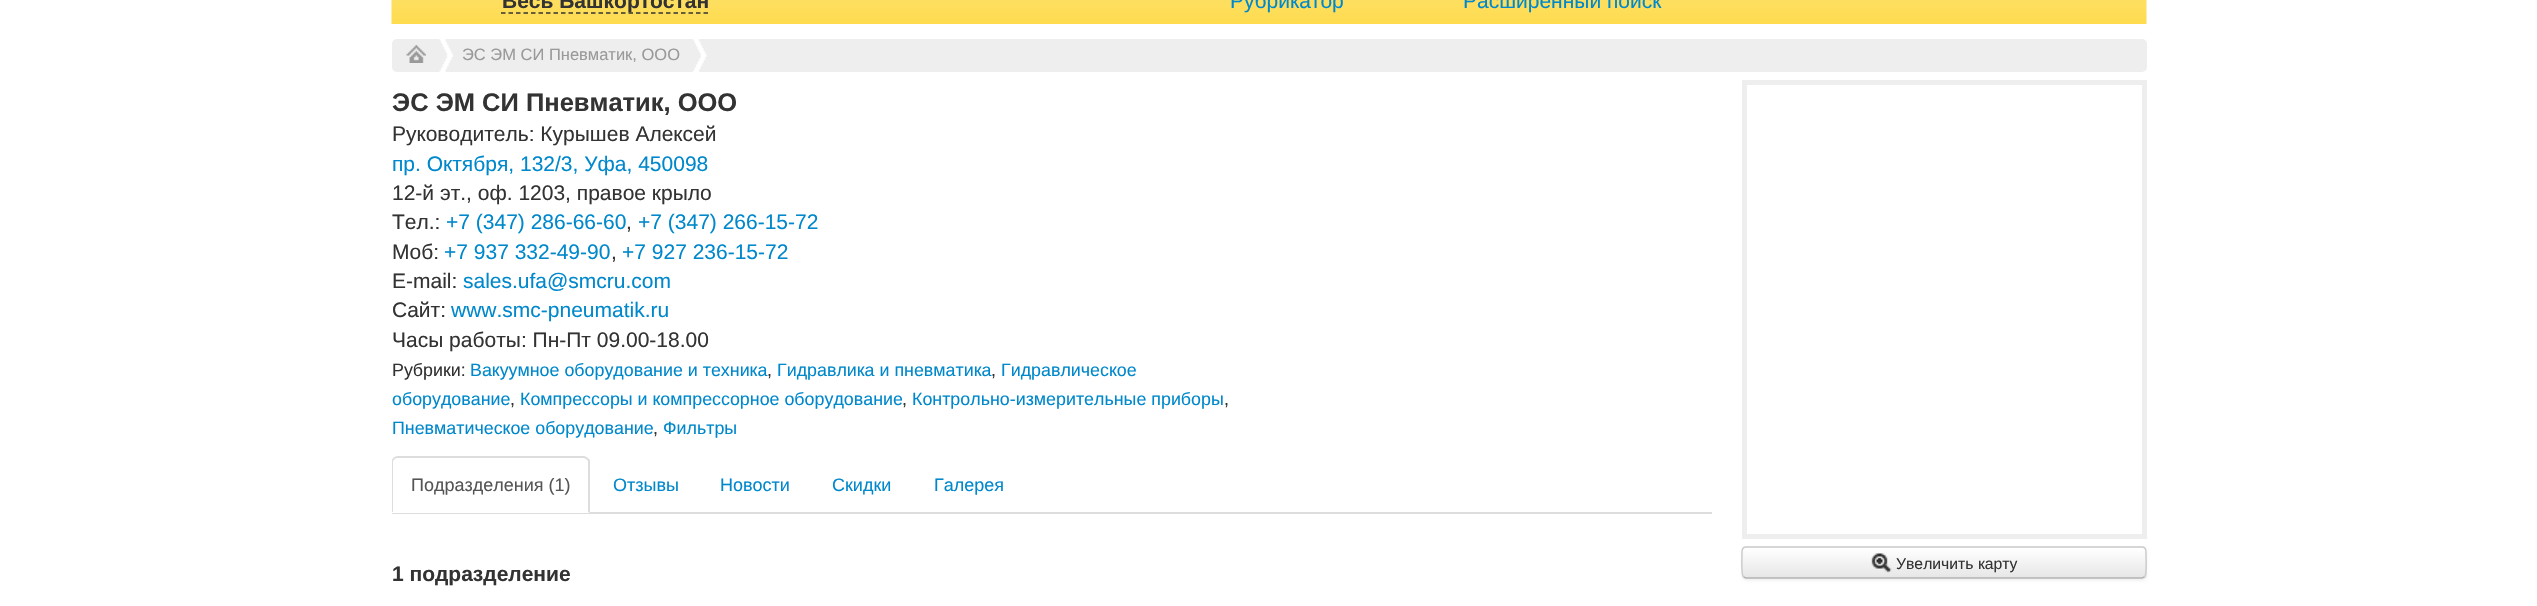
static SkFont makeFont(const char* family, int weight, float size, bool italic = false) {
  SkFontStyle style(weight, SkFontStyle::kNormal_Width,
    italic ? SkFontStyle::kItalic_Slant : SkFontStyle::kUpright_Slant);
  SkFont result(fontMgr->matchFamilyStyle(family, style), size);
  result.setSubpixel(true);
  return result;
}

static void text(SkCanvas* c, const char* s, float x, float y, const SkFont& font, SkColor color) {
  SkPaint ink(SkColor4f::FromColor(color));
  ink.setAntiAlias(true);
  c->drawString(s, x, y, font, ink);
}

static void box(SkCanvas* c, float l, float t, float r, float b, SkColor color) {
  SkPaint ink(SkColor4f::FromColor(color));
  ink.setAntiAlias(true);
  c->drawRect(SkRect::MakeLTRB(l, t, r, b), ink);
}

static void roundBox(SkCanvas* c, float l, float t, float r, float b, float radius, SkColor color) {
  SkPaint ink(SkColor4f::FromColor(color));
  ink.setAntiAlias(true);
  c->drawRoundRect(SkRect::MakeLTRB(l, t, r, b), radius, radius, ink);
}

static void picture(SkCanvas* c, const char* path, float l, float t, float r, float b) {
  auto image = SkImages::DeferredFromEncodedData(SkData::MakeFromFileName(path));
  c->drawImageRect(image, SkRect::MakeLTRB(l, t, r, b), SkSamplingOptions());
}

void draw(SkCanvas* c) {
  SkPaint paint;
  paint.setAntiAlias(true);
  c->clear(0xffffffff);
  picture(c, "img_01.png", 391, 0, 2147, 24);
  paint.setStyle(SkPaint::kStroke_Style);
  paint.setStrokeWidth(1.5f);
  paint.setColor(0xff333333);
  paint.setPathEffect(SkDashPathEffect::Make({{4.5f, 3}}, 0));
  c->drawPath(SkPathBuilder().moveTo(501, 13).lineTo(708, 13).detach(), paint);
  paint.setPathEffect(nullptr);
  SkFont face1 = makeFont("Liberation Sans", 700, 21);
  text(c, "Весь Башкортостан", 502, 8, face1, 0xff333333);
  SkFont face2 = makeFont("Liberation Sans", 400, 21);
  text(c, "Рубрикатор", 1230, 8, face2, 0xff0088cc);
  text(c, "Расширенный поиск", 1463, 8, face2, 0xff0088cc);
  roundBox(c, 392, 39, 2147, 72, 5, 0xffeeeeee);
  picture(c, "img_02.png", 406, 45, 426, 63);
  picture(c, "img_03.png", 439, 39, 453, 72);
  SkFont face3 = makeFont("Liberation Sans", 400, 16.5f);
  text(c, "ЭС ЭМ СИ Пневматик, ООО", 462, 60, face3, 0xff999999);
  picture(c, "img_04.png", 693, 39, 707, 72);
  SkFont face4 = makeFont("Liberation Sans", 700, 25.5f);
  text(c, "ЭС ЭМ СИ Пневматик, ООО", 392, 111, face4, 0xff333333);
  text(c, "Руководитель: Курышев Алексей", 392, 141, face2, 0xff333333);
  text(c, "пр. Октября, 132/3, Уфа, 450098", 392, 171, face2, 0xff0088cc);
  text(c, "12-й эт., оф. 1203, правое крыло", 392, 200, face2, 0xff333333);
  text(c, "Тел.:", 392, 229, face2, 0xff333333);
  text(c, "+7 (347) 286-66-60", 446, 229, face2, 0xff0088cc);
  text(c, ",", 626, 229, face2, 0xff333333);
  text(c, "+7 (347) 266-15-72", 638, 229, face2, 0xff0088cc);
  text(c, "Моб:", 392, 259, face2, 0xff333333);
  text(c, "+7 937 332-49-90", 444, 259, face2, 0xff0088cc);
  text(c, ",", 611, 259, face2, 0xff333333);
  text(c, "+7 927 236-15-72", 622, 259, face2, 0xff0088cc);
  text(c, "E-mail:", 392, 288, face2, 0xff333333);
  text(c, "sales.ufa@smcru.com", 463, 288, face2, 0xff0088cc);
  text(c, "Сайт:", 392, 317, face2, 0xff333333);
  text(c, "www.smc-pneumatik.ru", 451, 317, face2, 0xff0088cc);
  text(c, "Часы работы: Пн-Пт 09.00-18.00", 392, 347, face2, 0xff333333);
  SkFont face5 = makeFont("Liberation Sans", 400, 17.85f);
  text(c, "Рубрики:", 392, 376, face5, 0xff333333);
  text(c, "Вакуумное оборудование и техника", 470, 376, face5, 0xff0088cc);
  text(c, ",", 767, 376, face5, 0xff333333);
  text(c, "Гидравлика и пневматика", 777, 376, face5, 0xff0088cc);
  text(c, ",", 991, 376, face5, 0xff333333);
  text(c, "Гидравлическое", 1001, 376, face5, 0xff0088cc);
  text(c, "оборудование", 392, 405, face5, 0xff0088cc);
  text(c, ",", 510, 405, face5, 0xff333333);
  text(c, "Компрессоры и компрессорное оборудование", 520, 405, face5, 0xff0088cc);
  text(c, ",", 902, 405, face5, 0xff333333);
  text(c, "Контрольно-измерительные приборы", 912, 405, face5, 0xff0088cc);
  text(c, ",", 1224, 405, face5, 0xff333333);
  text(c, "Пневматическое оборудование", 392, 434, face5, 0xff0088cc);
  text(c, ",", 653, 434, face5, 0xff333333);
  text(c, "Фильтры", 663, 434, face5, 0xff0088cc);
  box(c, 392, 512, 1712, 514, 0xffdddddd);
  paint.setStyle(SkPaint::kFill_Style);
  paint.setColor(0xffffffff);
  c->drawPath(SkPathBuilder().moveTo(398, 456).lineTo(584, 456).cubicTo(587.5f, 456, 590, 458.5f, 590, 462).lineTo(590, 513).lineTo(392, 513).lineTo(392, 462).cubicTo(392, 458.5f, 394.5f, 456, 398, 456).close().detach(), paint);
  paint.setColor(0xffdddddd);
  c->drawPath(SkPathBuilder().moveTo(398, 456).cubicTo(396, 456, 394, 457, 393, 458).lineTo(395, 459).cubicTo(395, 458, 397, 458, 398, 458).lineTo(584, 458).lineTo(586, 459).lineTo(588, 458).cubicTo(587, 457, 585, 456, 584, 456).close().detach(), paint);
  c->drawPath(SkPathBuilder().moveTo(590, 460).lineTo(590, 513).lineTo(588, 512).lineTo(588, 461).lineTo(586, 459).lineTo(588, 458).close().detach(), paint);
  c->drawPath(SkPathBuilder().moveTo(393, 458).cubicTo(392, 459, 392, 461, 392, 462).lineTo(392, 512).lineTo(393, 512).lineTo(393, 461).lineTo(395, 459).close().detach(), paint);
  SkFont face6 = makeFont("Liberation Sans", 400, 18);
  text(c, "Подразделения (1)", 411, 491, face6, 0xff555555);
  text(c, "Отзывы", 613, 491, face6, 0xff0088cc);
  text(c, "Новости", 720, 491, face6, 0xff0088cc);
  text(c, "Скидки", 832, 491, face6, 0xff0088cc);
  text(c, "Галерея", 934, 491, face6, 0xff0088cc);
  text(c, "1 подразделение", 392, 581, face1, 0xff333333);
  paint.setStyle(SkPaint::kStroke_Style);
  paint.setStrokeWidth(5);
  paint.setColor(0xffeeeeee);
  c->drawRect(SkRect::MakeLTRB(1744.5f, 82.5f, 2144.5f, 536.5f), paint);
  paint.setStyle(SkPaint::kFill_Style);
  paint.setColor(0x0d000000);
  paint.setMaskFilter(SkMaskFilter::MakeBlur(kNormal_SkBlurStyle, 1.5f));
  c->drawRoundRect(SkRect::MakeLTRB(1742, 548, 2147, 581), 5, 5, paint);
  paint.setMaskFilter(nullptr);
  roundBox(c, 1742, 546, 2147, 579, 5, 0xfff5f5f5);
  c->save();
  c->clipPath(SkPathBuilder().moveTo(1747, 546).lineTo(2142, 546).cubicTo(2145, 546, 2147, 548, 2147, 551).lineTo(2147, 574).cubicTo(2147, 577, 2145, 579, 2142, 579).lineTo(1747, 579).cubicTo(1744, 579, 1742, 577, 1742, 574).lineTo(1742, 551).cubicTo(1742, 548, 1744, 546, 1747, 546).close().detach(), true);
  {
    const SkColor colors[] = {0xffffffff, 0xffe6e6e6};
    const float stops[] = {0, 1};
    const SkPoint ends[] = {{1944, 548}, {1944, 578}};
    paint.setShader(SkGradientShader::MakeLinear(ends, colors, stops, 2, SkTileMode::kClamp));
    paint.setAlpha(255);
  }
  c->drawRect(SkRect::MakeLTRB(1742, 548, 2147, 578), paint);
  c->restore();
  paint.setStyle(SkPaint::kStroke_Style);
  paint.setStrokeWidth(1.5f);
  paint.setShader(nullptr);
  paint.setColor(0xffb3b3b3);
  c->drawPath(SkPathBuilder().moveTo(2144.5f, 577).lineTo(2142, 578).lineTo(1746, 578).lineTo(1743.5f, 577).detach(), paint);
  paint.setColor(0xffcccccc);
  c->drawPath(SkPathBuilder().moveTo(1743.5f, 577).cubicTo(1741, 575, 1742, 558.5f, 1742, 554.5f).cubicTo(1742, 551.5f, 1741.5f, 547, 1746, 547).lineTo(2142, 547).cubicTo(2146.5f, 547, 2146, 551.5f, 2146, 554.5f).cubicTo(2146, 558.5f, 2147, 575, 2144.5f, 577).detach(), paint);
  picture(c, "img_05.png", 1871, 553, 1892, 573);
  SkFont face7 = makeFont("Liberation Sans", 400, 15.75f);
  text(c, "Увеличить карту", 1896, 569, face7, 0xff333333);
}
